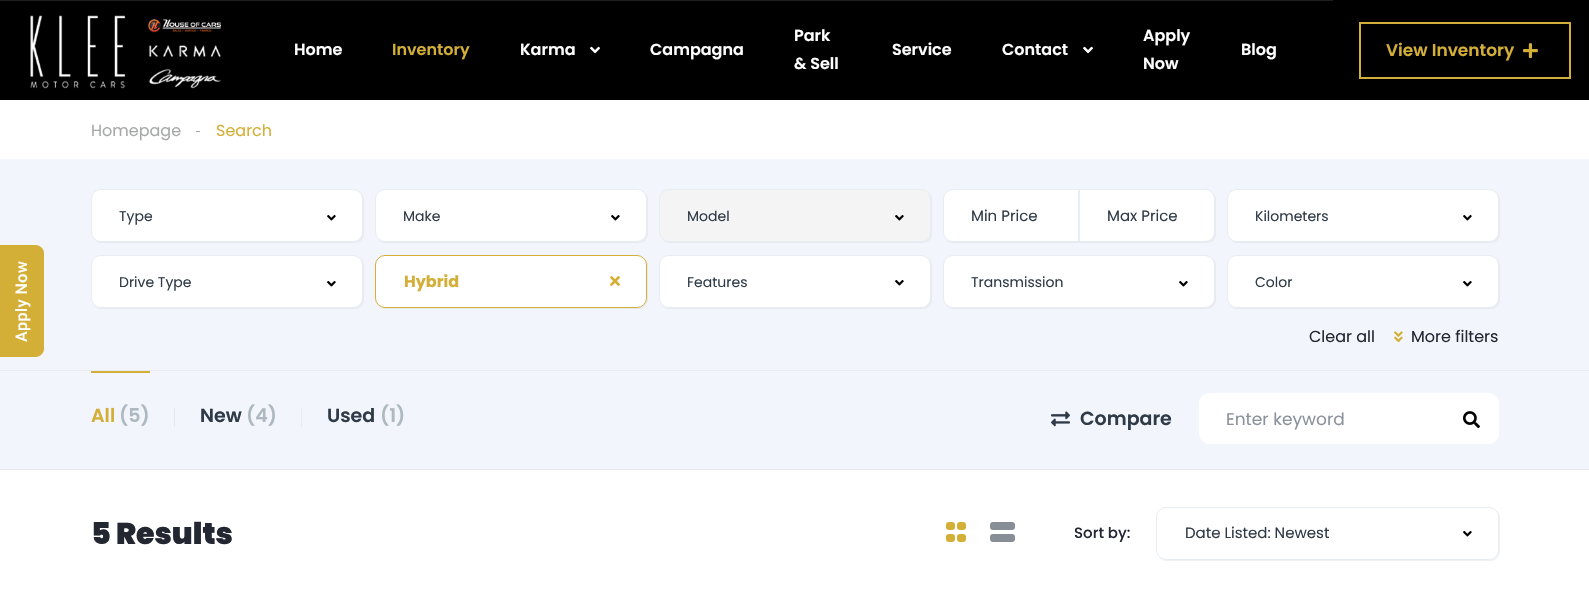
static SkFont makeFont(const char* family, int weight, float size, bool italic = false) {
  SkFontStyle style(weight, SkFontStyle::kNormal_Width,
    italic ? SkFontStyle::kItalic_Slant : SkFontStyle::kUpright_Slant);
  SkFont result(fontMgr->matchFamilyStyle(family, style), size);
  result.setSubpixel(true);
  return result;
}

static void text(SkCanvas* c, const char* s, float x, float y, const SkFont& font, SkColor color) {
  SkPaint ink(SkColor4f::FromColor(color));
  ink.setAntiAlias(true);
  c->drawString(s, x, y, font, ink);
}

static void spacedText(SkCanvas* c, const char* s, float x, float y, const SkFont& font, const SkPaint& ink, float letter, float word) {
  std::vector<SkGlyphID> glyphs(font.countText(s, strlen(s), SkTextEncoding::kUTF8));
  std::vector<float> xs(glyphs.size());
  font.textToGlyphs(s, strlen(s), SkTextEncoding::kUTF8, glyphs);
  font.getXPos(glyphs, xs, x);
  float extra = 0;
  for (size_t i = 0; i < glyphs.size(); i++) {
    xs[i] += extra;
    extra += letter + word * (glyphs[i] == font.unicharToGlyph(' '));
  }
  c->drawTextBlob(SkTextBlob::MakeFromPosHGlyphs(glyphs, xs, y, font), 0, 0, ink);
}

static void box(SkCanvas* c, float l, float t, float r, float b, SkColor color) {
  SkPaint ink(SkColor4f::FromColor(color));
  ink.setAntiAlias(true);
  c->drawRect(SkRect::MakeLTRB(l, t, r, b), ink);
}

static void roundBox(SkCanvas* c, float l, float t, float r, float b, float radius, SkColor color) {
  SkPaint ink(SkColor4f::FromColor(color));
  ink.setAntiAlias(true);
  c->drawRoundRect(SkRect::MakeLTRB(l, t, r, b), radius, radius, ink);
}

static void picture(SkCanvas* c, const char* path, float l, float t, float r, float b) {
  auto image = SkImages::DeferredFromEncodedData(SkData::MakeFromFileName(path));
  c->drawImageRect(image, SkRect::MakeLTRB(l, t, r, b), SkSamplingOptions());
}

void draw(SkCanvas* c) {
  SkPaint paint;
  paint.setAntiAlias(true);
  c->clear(0xffffffff);
  box(c, 0, 159, 1589, 469, 0xfff2f5fb);
  paint.setColor(0xffd4af37);
  c->drawPath(SkPathBuilder().moveTo(0, 357).lineTo(0, 245).lineTo(36, 245).cubicTo(40, 245, 44, 249, 44, 253).lineTo(44, 349).cubicTo(44, 353, 40, 357, 36, 357).close().detach(), paint);
  SkFont face1 = makeFont("Roboto", 500, 16);
  paint.setColor(0xffffffff);
  c->save();
  c->rotate(-90, 27, 342);
  spacedText(c, "Apply Now", 27, 342, face1, paint, 0.5f, 0);
  c->restore();
  box(c, 0, 0, 1589, 100, 0xff000000);
  box(c, 0, 0, 1333, 1, 0xff1f1f1f);
  picture(c, "img_01.png", 30, 15, 221, 89);
  SkFont face2 = makeFont("Poppins", 600, 16);
  text(c, "Home", 294, 55, face2, 0xffffffff);
  text(c, "Inventory", 392, 55, face2, 0xffd4af37);
  text(c, "Karma", 520, 55, face2, 0xffffffff);
  picture(c, "img_02.png", 590, 46, 600, 54);
  text(c, "Campagna", 650, 55, face2, 0xffffffff);
  text(c, "Park", 794, 41, face2, 0xffffffff);
  text(c, "& Sell", 794, 69, face2, 0xffffffff);
  text(c, "Service", 892, 55, face2, 0xffffffff);
  text(c, "Contact", 1002, 55, face2, 0xffffffff);
  picture(c, "img_02.png", 1083, 46, 1093, 54);
  text(c, "Apply", 1143, 41, face2, 0xffffffff);
  text(c, "Now", 1143, 69, face2, 0xffffffff);
  text(c, "Blog", 1241, 55, face2, 0xffffffff);
  paint.setStyle(SkPaint::kStroke_Style);
  paint.setStrokeWidth(2);
  paint.setColor(0xffd4af37);
  c->drawRect(SkRect::MakeLTRB(1360, 23, 1570, 78), paint);
  SkFont face3 = makeFont("Poppins", 600, 17);
  text(c, "View Inventory", 1386, 56, face3, 0xffd4af37);
  picture(c, "img_03.png", 1523, 43, 1538, 59);
  SkFont face4 = makeFont("Poppins", 400, 16);
  text(c, "Homepage", 91, 136, face4, 0xffa7a8a8);
  box(c, 196, 131, 200, 132, 0xffa7a8a8);
  text(c, "Search", 216, 136, face4, 0xffd4af37);
  box(c, 0, 469, 1589, 470, 0xffe7e9ee);
  paint.setStyle(SkPaint::kFill_Style);
  paint.setColor(0xffe7e9ee);
  c->drawPath(SkPathBuilder().moveTo(94, 240).cubicTo(96, 242, 99, 243, 102, 243).lineTo(354, 243).cubicTo(360, 243, 364, 239, 364, 233).lineTo(364, 200).cubicTo(364, 197, 363, 194, 361, 192).cubicTo(362, 194, 363, 196, 363, 199).lineTo(363, 232).cubicTo(363, 238, 359, 242, 353, 242).lineTo(101, 242).cubicTo(98, 242, 96, 241, 94, 240).close().detach(), paint);
  paint.setColor(0xffffffff);
  c->drawRoundRect(SkRect::MakeLTRB(91.5f, 189.5f, 362.5f, 241.5f), 9.5f, 9.5f, paint);
  paint.setStyle(SkPaint::kStroke_Style);
  paint.setStrokeWidth(1);
  paint.setColor(0xffe7edf3);
  c->drawRoundRect(SkRect::MakeLTRB(91.5f, 189.5f, 362.5f, 241.5f), 9.5f, 9.5f, paint);
  SkFont face5 = makeFont("Poppins", 400, 14);
  text(c, "Type", 119, 221, face5, 0xff2f3b48);
  picture(c, "img_04.png", 327, 215, 336, 221);
  paint.setStyle(SkPaint::kFill_Style);
  paint.setColor(0xffe7e9ee);
  c->drawPath(SkPathBuilder().moveTo(378, 240).cubicTo(380, 242, 383, 243, 386, 243).lineTo(638, 243).cubicTo(644, 243, 648, 239, 648, 233).lineTo(648, 200).cubicTo(648, 197, 647, 194, 645, 192).cubicTo(646, 194, 647, 196, 647, 199).lineTo(647, 232).cubicTo(647, 238, 643, 242, 637, 242).lineTo(385, 242).cubicTo(382, 242, 380, 241, 378, 240).close().detach(), paint);
  paint.setColor(0xffffffff);
  c->drawRoundRect(SkRect::MakeLTRB(375.5f, 189.5f, 646.5f, 241.5f), 9.5f, 9.5f, paint);
  paint.setStyle(SkPaint::kStroke_Style);
  paint.setColor(0xffe7edf3);
  c->drawRoundRect(SkRect::MakeLTRB(375.5f, 189.5f, 646.5f, 241.5f), 9.5f, 9.5f, paint);
  text(c, "Make", 403, 221, face5, 0xff2f3b48);
  picture(c, "img_04.png", 611, 215, 620, 221);
  paint.setStyle(SkPaint::kFill_Style);
  paint.setColor(0xffe7e9ee);
  c->drawPath(SkPathBuilder().moveTo(662, 240).cubicTo(664, 242, 667, 243, 670, 243).lineTo(922, 243).cubicTo(928, 243, 932, 239, 932, 233).lineTo(932, 200).cubicTo(932, 197, 931, 194, 929, 192).cubicTo(930, 194, 931, 196, 931, 199).lineTo(931, 232).cubicTo(931, 238, 927, 242, 921, 242).lineTo(669, 242).cubicTo(666, 242, 664, 241, 662, 240).close().detach(), paint);
  paint.setColor(0xfff4f4f4);
  c->drawRoundRect(SkRect::MakeLTRB(659.5f, 189.5f, 930.5f, 241.5f), 9.5f, 9.5f, paint);
  paint.setStyle(SkPaint::kStroke_Style);
  paint.setColor(0xffe7edf3);
  c->drawRoundRect(SkRect::MakeLTRB(659.5f, 189.5f, 930.5f, 241.5f), 9.5f, 9.5f, paint);
  text(c, "Model", 687, 221, face5, 0xff2f3b48);
  picture(c, "img_05.png", 895, 215, 904, 221);
  paint.setStyle(SkPaint::kFill_Style);
  paint.setColor(0xffe7e9ee);
  c->drawPath(SkPathBuilder().moveTo(946, 240).cubicTo(948, 242, 951, 243, 954, 243).lineTo(1080, 243).lineTo(1080, 190).lineTo(1079, 190).lineTo(1079, 242).lineTo(953, 242).cubicTo(950, 242, 948, 241, 946, 240).close().detach(), paint);
  paint.setColor(0xffffffff);
  c->drawPath(SkPathBuilder().moveTo(953, 189.5f).lineTo(1078.5f, 189.5f).lineTo(1078.5f, 241.5f).lineTo(953, 241.5f).cubicTo(948, 241.5f, 943.5f, 237, 943.5f, 232).lineTo(943.5f, 199).cubicTo(943.5f, 194, 948, 189.5f, 953, 189.5f).close().detach(), paint);
  paint.setStyle(SkPaint::kStroke_Style);
  paint.setColor(0xffe7edf3);
  c->drawPath(SkPathBuilder().moveTo(953, 189.5f).lineTo(1078.5f, 189.5f).lineTo(1078.5f, 241.5f).lineTo(953, 241.5f).cubicTo(948, 241.5f, 943.5f, 237, 943.5f, 232).lineTo(943.5f, 199).cubicTo(943.5f, 194, 948, 189.5f, 953, 189.5f).close().detach(), paint);
  SkFont face6 = makeFont("Poppins", 400, 15);
  text(c, "Min Price", 971, 221, face6, 0xff2f3b48);
  paint.setStyle(SkPaint::kFill_Style);
  paint.setColor(0xffe7e9ee);
  c->drawPath(SkPathBuilder().moveTo(1080, 242).lineTo(1080, 243).lineTo(1206, 243).cubicTo(1212, 243, 1216, 239, 1216, 233).lineTo(1216, 200).cubicTo(1216, 197, 1215, 194, 1213, 192).cubicTo(1214, 194, 1215, 196, 1215, 199).lineTo(1215, 232).cubicTo(1215, 238, 1211, 242, 1205, 242).close().detach(), paint);
  paint.setColor(0xffffffff);
  c->drawPath(SkPathBuilder().moveTo(1079.5f, 189.5f).lineTo(1205, 189.5f).cubicTo(1210, 189.5f, 1214.5f, 194, 1214.5f, 199).lineTo(1214.5f, 232).cubicTo(1214.5f, 237, 1210, 241.5f, 1205, 241.5f).lineTo(1079.5f, 241.5f).close().detach(), paint);
  paint.setStyle(SkPaint::kStroke_Style);
  paint.setColor(0xffe7edf3);
  c->drawPath(SkPathBuilder().moveTo(1079.5f, 189.5f).lineTo(1205, 189.5f).cubicTo(1210, 189.5f, 1214.5f, 194, 1214.5f, 199).lineTo(1214.5f, 232).cubicTo(1214.5f, 237, 1210, 241.5f, 1205, 241.5f).lineTo(1079.5f, 241.5f).close().detach(), paint);
  text(c, "Max Price", 1107, 221, face6, 0xff2f3b48);
  paint.setStyle(SkPaint::kFill_Style);
  paint.setColor(0xffe7e9ee);
  c->drawPath(SkPathBuilder().moveTo(1230, 240).cubicTo(1232, 242, 1235, 243, 1238, 243).lineTo(1490, 243).cubicTo(1496, 243, 1500, 239, 1500, 233).lineTo(1500, 200).cubicTo(1500, 197, 1499, 194, 1497, 192).cubicTo(1498, 194, 1499, 196, 1499, 199).lineTo(1499, 232).cubicTo(1499, 238, 1495, 242, 1489, 242).lineTo(1237, 242).cubicTo(1234, 242, 1232, 241, 1230, 240).close().detach(), paint);
  paint.setColor(0xffffffff);
  c->drawRoundRect(SkRect::MakeLTRB(1227.5f, 189.5f, 1498.5f, 241.5f), 9.5f, 9.5f, paint);
  paint.setStyle(SkPaint::kStroke_Style);
  paint.setColor(0xffe7edf3);
  c->drawRoundRect(SkRect::MakeLTRB(1227.5f, 189.5f, 1498.5f, 241.5f), 9.5f, 9.5f, paint);
  text(c, "Kilometers", 1255, 221, face5, 0xff2f3b48);
  picture(c, "img_04.png", 1463, 215, 1472, 221);
  paint.setStyle(SkPaint::kFill_Style);
  paint.setColor(0xffe7e9ee);
  c->drawPath(SkPathBuilder().moveTo(94, 306).cubicTo(96, 308, 99, 309, 102, 309).lineTo(354, 309).cubicTo(360, 309, 364, 305, 364, 299).lineTo(364, 266).cubicTo(364, 263, 363, 260, 361, 258).cubicTo(362, 260, 363, 262, 363, 265).lineTo(363, 298).cubicTo(363, 304, 359, 308, 353, 308).lineTo(101, 308).cubicTo(98, 308, 96, 307, 94, 306).close().detach(), paint);
  paint.setColor(0xffffffff);
  c->drawRoundRect(SkRect::MakeLTRB(91.5f, 255.5f, 362.5f, 307.5f), 9.5f, 9.5f, paint);
  paint.setStyle(SkPaint::kStroke_Style);
  paint.setColor(0xffe7edf3);
  c->drawRoundRect(SkRect::MakeLTRB(91.5f, 255.5f, 362.5f, 307.5f), 9.5f, 9.5f, paint);
  text(c, "Drive Type", 119, 287, face5, 0xff2f3b48);
  picture(c, "img_04.png", 327, 281, 336, 287);
  paint.setStyle(SkPaint::kFill_Style);
  paint.setColor(0xffe7e9ee);
  c->drawPath(SkPathBuilder().moveTo(378, 306).cubicTo(380, 308, 383, 309, 386, 309).lineTo(638, 309).cubicTo(644, 309, 648, 305, 648, 299).lineTo(648, 266).cubicTo(648, 263, 647, 260, 645, 258).cubicTo(646, 260, 647, 262, 647, 265).lineTo(647, 298).cubicTo(647, 304, 643, 308, 637, 308).lineTo(385, 308).cubicTo(382, 308, 380, 307, 378, 306).close().detach(), paint);
  paint.setColor(0xffffffff);
  c->drawRoundRect(SkRect::MakeLTRB(375.5f, 255.5f, 646.5f, 307.5f), 9.5f, 9.5f, paint);
  paint.setStyle(SkPaint::kStroke_Style);
  paint.setColor(0xffd4af37);
  c->drawRoundRect(SkRect::MakeLTRB(375.5f, 255.5f, 646.5f, 307.5f), 9.5f, 9.5f, paint);
  SkFont face7 = makeFont("Poppins", 700, 16);
  text(c, "Hybrid", 404, 287, face7, 0xffd4af37);
  picture(c, "img_06.png", 610, 276, 620, 286);
  paint.setStyle(SkPaint::kFill_Style);
  paint.setColor(0xffe7e9ee);
  c->drawPath(SkPathBuilder().moveTo(662, 306).cubicTo(664, 308, 667, 309, 670, 309).lineTo(922, 309).cubicTo(928, 309, 932, 305, 932, 299).lineTo(932, 266).cubicTo(932, 263, 931, 260, 929, 258).cubicTo(930, 260, 931, 262, 931, 265).lineTo(931, 298).cubicTo(931, 304, 927, 308, 921, 308).lineTo(669, 308).cubicTo(666, 308, 664, 307, 662, 306).close().detach(), paint);
  paint.setColor(0xffffffff);
  c->drawRoundRect(SkRect::MakeLTRB(659.5f, 255.5f, 930.5f, 307.5f), 9.5f, 9.5f, paint);
  paint.setStyle(SkPaint::kStroke_Style);
  paint.setColor(0xffe7edf3);
  c->drawRoundRect(SkRect::MakeLTRB(659.5f, 255.5f, 930.5f, 307.5f), 9.5f, 9.5f, paint);
  text(c, "Features", 687, 287, face5, 0xff2f3b48);
  picture(c, "img_04.png", 895, 280, 904, 286);
  paint.setStyle(SkPaint::kFill_Style);
  paint.setColor(0xffe7e9ee);
  c->drawPath(SkPathBuilder().moveTo(946, 306).cubicTo(948, 308, 951, 309, 954, 309).lineTo(1206, 309).cubicTo(1212, 309, 1216, 305, 1216, 299).lineTo(1216, 266).cubicTo(1216, 263, 1215, 260, 1213, 258).cubicTo(1214, 260, 1215, 262, 1215, 265).lineTo(1215, 298).cubicTo(1215, 304, 1211, 308, 1205, 308).lineTo(953, 308).cubicTo(950, 308, 948, 307, 946, 306).close().detach(), paint);
  paint.setColor(0xffffffff);
  c->drawRoundRect(SkRect::MakeLTRB(943.5f, 255.5f, 1214.5f, 307.5f), 9.5f, 9.5f, paint);
  paint.setStyle(SkPaint::kStroke_Style);
  paint.setColor(0xffe7edf3);
  c->drawRoundRect(SkRect::MakeLTRB(943.5f, 255.5f, 1214.5f, 307.5f), 9.5f, 9.5f, paint);
  text(c, "Transmission", 971, 287, face5, 0xff2f3b48);
  picture(c, "img_04.png", 1179, 281, 1188, 287);
  paint.setStyle(SkPaint::kFill_Style);
  paint.setColor(0xffe7e9ee);
  c->drawPath(SkPathBuilder().moveTo(1230, 306).cubicTo(1232, 308, 1235, 309, 1238, 309).lineTo(1490, 309).cubicTo(1496, 309, 1500, 305, 1500, 299).lineTo(1500, 266).cubicTo(1500, 263, 1499, 260, 1497, 258).cubicTo(1498, 260, 1499, 262, 1499, 265).lineTo(1499, 298).cubicTo(1499, 304, 1495, 308, 1489, 308).lineTo(1237, 308).cubicTo(1234, 308, 1232, 307, 1230, 306).close().detach(), paint);
  paint.setColor(0xffffffff);
  c->drawRoundRect(SkRect::MakeLTRB(1227.5f, 255.5f, 1498.5f, 307.5f), 9.5f, 9.5f, paint);
  paint.setStyle(SkPaint::kStroke_Style);
  paint.setColor(0xffe7edf3);
  c->drawRoundRect(SkRect::MakeLTRB(1227.5f, 255.5f, 1498.5f, 307.5f), 9.5f, 9.5f, paint);
  text(c, "Color", 1255, 287, face5, 0xff2f3b48);
  picture(c, "img_04.png", 1463, 281, 1472, 287);
  text(c, "Clear all", 1309, 342, face4, 0xff222732);
  picture(c, "img_07.png", 1394, 331, 1403, 343);
  text(c, "More filters", 1411, 342, face4, 0xff222732);
  box(c, 0, 370, 1589, 371, 0xffe9ebf0);
  box(c, 91, 371, 150, 373, 0xffd4af37);
  SkFont face8 = makeFont("Poppins", 600, 19);
  text(c, "All", 91, 422, face8, 0xffd4af37);
  text(c, "(5)", 119, 422, face8, 0xffaeb8c1);
  box(c, 174, 408, 175, 427, 0xffe7e9ee);
  text(c, "New", 200, 422, face8, 0xff2f3b48);
  text(c, "(4)", 246, 422, face8, 0xffaeb8c1);
  box(c, 301, 408, 302, 427, 0xffe7e9ee);
  text(c, "Used", 327, 422, face8, 0xff2f3b48);
  text(c, "(1)", 380, 422, face8, 0xffaeb8c1);
  picture(c, "img_08.png", 1051, 411, 1070, 427);
  text(c, "Compare", 1080, 425, face8, 0xff2f3b48);
  paint.setStyle(SkPaint::kFill_Style);
  paint.setColor(0xffffffff);
  c->drawRoundRect(SkRect::MakeLTRB(1199.5f, 393.5f, 1498.5f, 443.5f), 9.5f, 9.5f, paint);
  paint.setStyle(SkPaint::kStroke_Style);
  c->drawRoundRect(SkRect::MakeLTRB(1199.5f, 393.5f, 1498.5f, 443.5f), 9.5f, 9.5f, paint);
  SkFont face9 = makeFont("Poppins", 400, 17);
  text(c, "Enter keyword", 1226, 425, face9, 0xff8b929b);
  picture(c, "img_09.png", 1463, 411, 1480, 429);
  SkFont face10 = makeFont("Poppins", 900, 30);
  text(c, "5 Results", 91, 544, face10, 0xff222732);
  roundBox(c, 946, 522, 955, 530, 3, 0xffd4af37);
  roundBox(c, 957, 522, 966, 530, 3, 0xffd4af37);
  roundBox(c, 946, 534, 955, 542, 3, 0xffd4af37);
  roundBox(c, 957, 534, 966, 542, 3, 0xffd4af37);
  roundBox(c, 990, 522, 1015, 530, 3, 0xff888e95);
  roundBox(c, 990, 534, 1015, 542, 3, 0xff888e95);
  SkFont face11 = makeFont("Poppins", 500, 15);
  text(c, "Sort by:", 1074, 538, face11, 0xff222732);
  paint.setStyle(SkPaint::kFill_Style);
  paint.setColor(0xfff1f1f1);
  c->drawPath(SkPathBuilder().moveTo(1159, 558).cubicTo(1161, 560, 1164, 561, 1167, 561).lineTo(1490, 561).cubicTo(1496, 561, 1500, 557, 1500, 551).lineTo(1500, 518).cubicTo(1500, 515, 1499, 512, 1497, 510).cubicTo(1498, 512, 1499, 514, 1499, 517).lineTo(1499, 550).cubicTo(1499, 556, 1495, 560, 1489, 560).lineTo(1166, 560).cubicTo(1163, 560, 1161, 559, 1159, 558).close().detach(), paint);
  paint.setColor(0xffffffff);
  c->drawRoundRect(SkRect::MakeLTRB(1156.5f, 507.5f, 1498.5f, 559.5f), 9.5f, 9.5f, paint);
  paint.setStyle(SkPaint::kStroke_Style);
  paint.setColor(0xffe7edf3);
  c->drawRoundRect(SkRect::MakeLTRB(1156.5f, 507.5f, 1498.5f, 559.5f), 9.5f, 9.5f, paint);
  text(c, "Date Listed: Newest", 1185, 538, face6, 0xff2f3b48);
  picture(c, "img_04.png", 1463, 531, 1472, 537);
}
